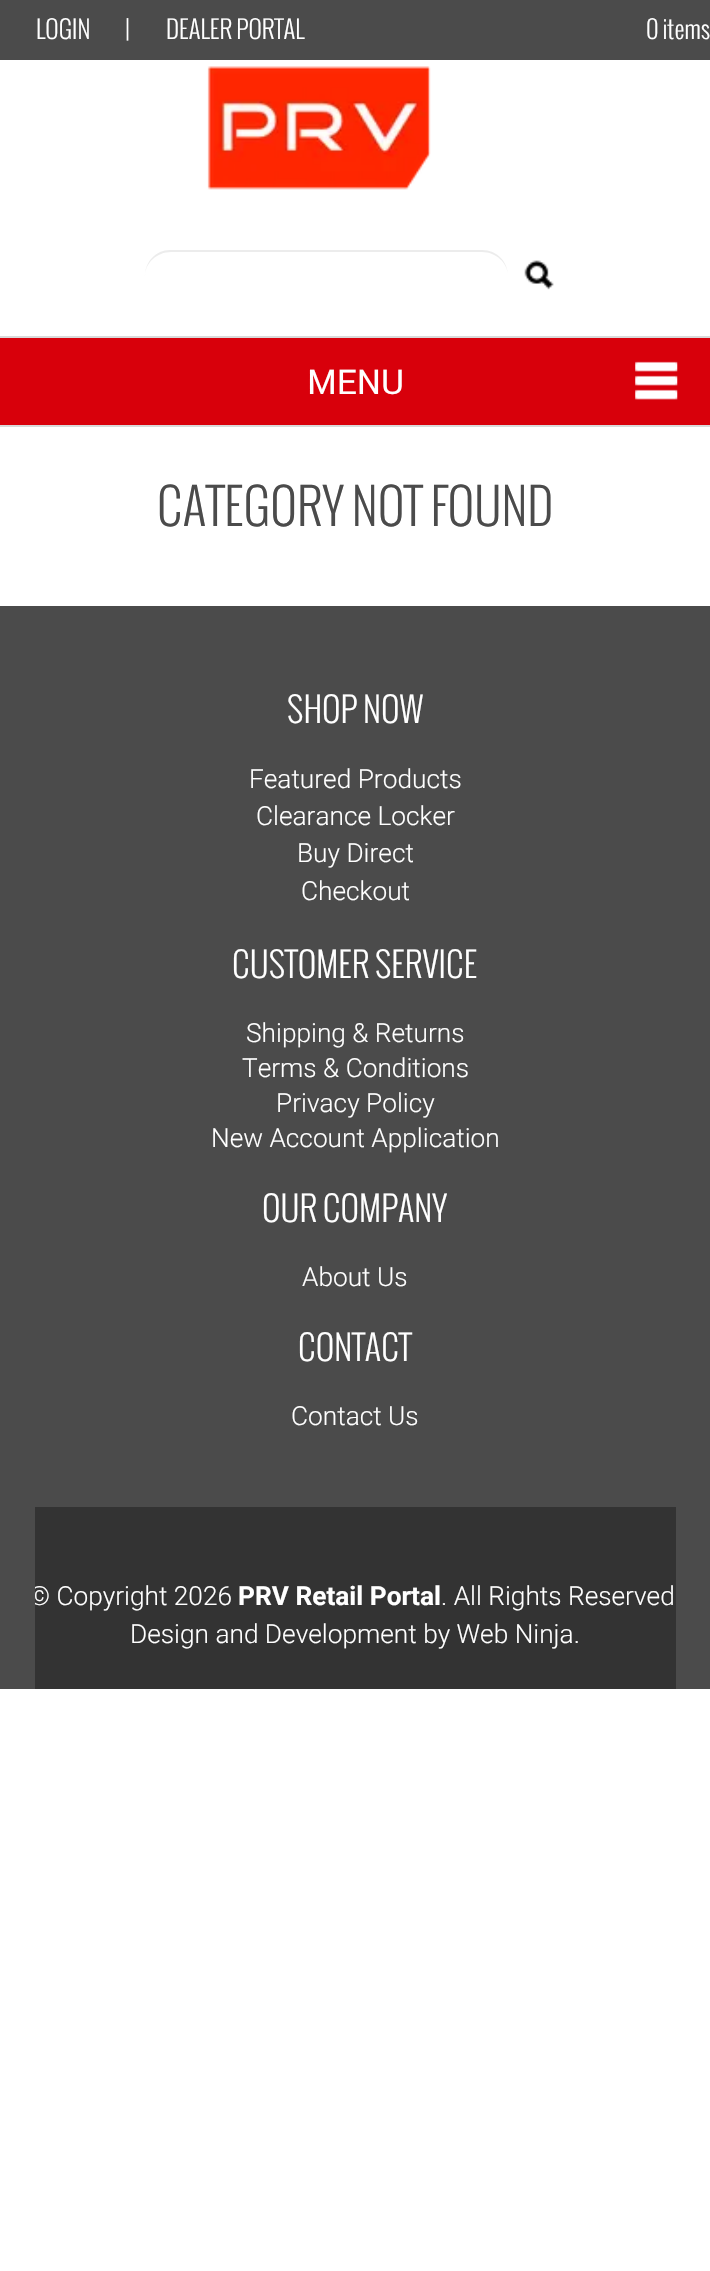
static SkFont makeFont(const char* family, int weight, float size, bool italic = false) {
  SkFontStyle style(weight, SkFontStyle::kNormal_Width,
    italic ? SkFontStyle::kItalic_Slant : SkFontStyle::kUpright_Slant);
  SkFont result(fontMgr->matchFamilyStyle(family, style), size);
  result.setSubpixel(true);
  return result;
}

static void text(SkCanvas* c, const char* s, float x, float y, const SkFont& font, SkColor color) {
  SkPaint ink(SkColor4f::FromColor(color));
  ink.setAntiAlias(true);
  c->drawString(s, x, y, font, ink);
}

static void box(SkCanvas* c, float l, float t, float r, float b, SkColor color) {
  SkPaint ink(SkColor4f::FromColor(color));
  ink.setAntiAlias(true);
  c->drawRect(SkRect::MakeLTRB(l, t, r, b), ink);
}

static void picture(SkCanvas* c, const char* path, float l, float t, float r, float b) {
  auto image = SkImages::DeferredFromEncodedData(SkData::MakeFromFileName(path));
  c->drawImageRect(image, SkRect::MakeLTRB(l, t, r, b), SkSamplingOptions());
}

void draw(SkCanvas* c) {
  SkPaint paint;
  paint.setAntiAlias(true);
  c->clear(0xffffffff);
  box(c, 0, 0, 710, 60, 0xff4b4b4b);
  SkFont face1 = makeFont("Oswald", 300, 24.5f);
  text(c, "LOGIN", 36, 39, face1, 0xffffffff);
  text(c, "|", 125, 39, face1, 0xffffffff);
  text(c, "DEALER PORTAL", 166, 39, face1, 0xffffffff);
  text(c, "0 items", 646, 39, face1, 0xffffffff);
  box(c, 0, 336, 710, 338, 0xffd9d9d9);
  picture(c, "img_01.png", 207, 66, 431, 190);
  paint.setColor(0xffececec);
  c->drawPath(SkPathBuilder().moveTo(171, 252).lineTo(482, 252).cubicTo(496, 252, 508, 263, 508, 276).cubicTo(508, 262, 497, 250, 482, 250).lineTo(170, 250).cubicTo(156, 250, 145, 262, 145, 276).cubicTo(145, 263, 157, 252, 171, 252).close().detach(), paint);
  picture(c, "img_02.png", 524, 260, 554, 290);
  box(c, 0, 425, 710, 427, 0xffd9d9d9);
  box(c, 0, 338, 710, 425, 0xffd8000b);
  picture(c, "img_03.png", 635, 361, 678, 400);
  SkFont face2 = makeFont("Roboto", 400, 34);
  text(c, "MENU", 307, 394, face2, 0xffffffff);
  SkFont face3 = makeFont("Oswald", 300, 49);
  text(c, "CATEGORY NOT FOUND", 157, 526, face3, 0xff4b4b4b);
  box(c, 0, 606, 710, 1689, 0xff4b4b4b);
  SkFont face4 = makeFont("Oswald", 300, 34);
  text(c, "SHOP NOW", 287, 723, face4, 0xffffffff);
  SkFont face5 = makeFont("Roboto", 300, 26.25f);
  text(c, "Featured Products", 249, 788, face5, 0xffffffff);
  text(c, "Clearance Locker", 256, 825, face5, 0xffffffff);
  text(c, "Buy Direct", 297, 862, face5, 0xffffffff);
  text(c, "Checkout", 301, 900, face5, 0xffffffff);
  text(c, "CUSTOMER SERVICE", 232, 978, face4, 0xffffffff);
  text(c, "Shipping & Returns", 246, 1042, face5, 0xffffffff);
  text(c, "Terms & Conditions", 242, 1077, face5, 0xffffffff);
  text(c, "Privacy Policy", 276, 1112, face5, 0xffffffff);
  text(c, "New Account Application", 211, 1147, face5, 0xffffffff);
  text(c, "OUR COMPANY", 262, 1222, face4, 0xffffffff);
  text(c, "About Us", 302, 1286, face5, 0xffffffff);
  text(c, "CONTACT", 298, 1361, face4, 0xffffffff);
  text(c, "Contact Us", 291, 1425, face5, 0xffffffff);
  box(c, 35, 1507, 676, 1689, 0xff333333);
  c->save();
  c->clipRect(SkRect::MakeLTRB(35, 658, 676, 1689));
  text(c, "© Copyright 2026", 29, 1605, face5, 0xffffffff);
  c->restore();
  SkFont face6 = makeFont("Roboto", 700, 26.25f);
  text(c, "PRV Retail Portal", 238, 1605, face6, 0xffffffff);
  text(c, ". All Rights Reserved", 441, 1605, face5, 0xffffffff);
  text(c, "Design and Development by Web Ninja.", 130, 1643, face5, 0xffffffff);
}
